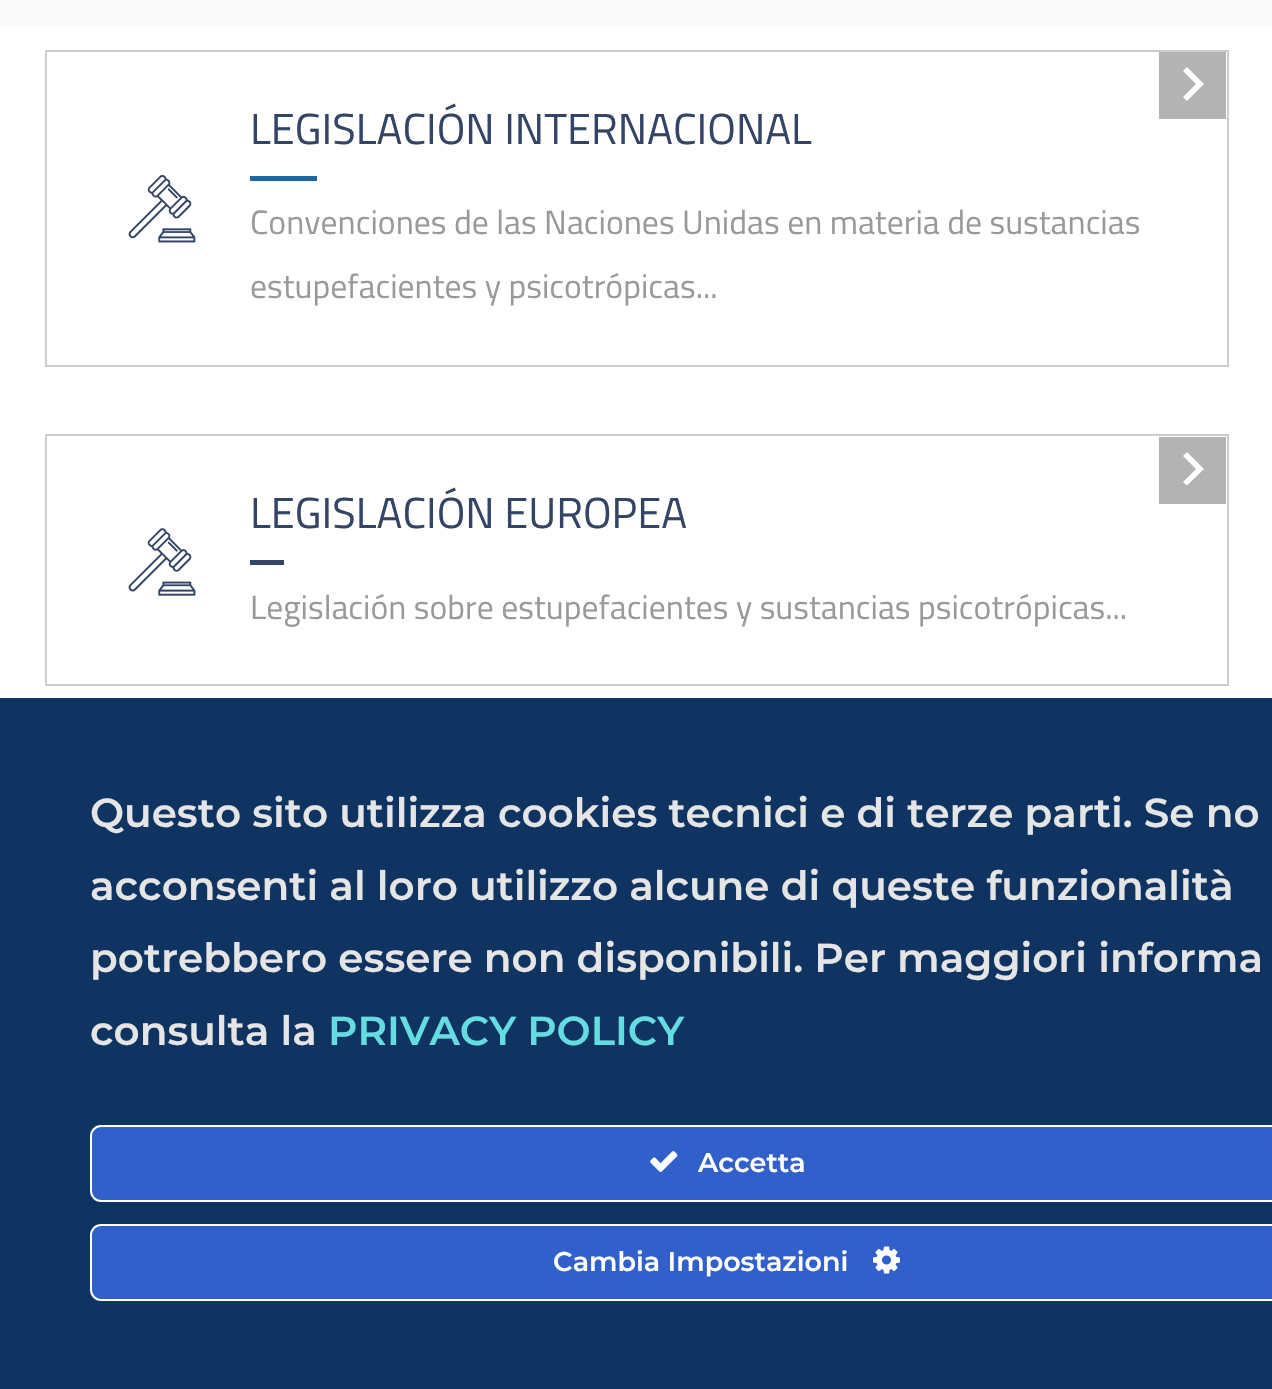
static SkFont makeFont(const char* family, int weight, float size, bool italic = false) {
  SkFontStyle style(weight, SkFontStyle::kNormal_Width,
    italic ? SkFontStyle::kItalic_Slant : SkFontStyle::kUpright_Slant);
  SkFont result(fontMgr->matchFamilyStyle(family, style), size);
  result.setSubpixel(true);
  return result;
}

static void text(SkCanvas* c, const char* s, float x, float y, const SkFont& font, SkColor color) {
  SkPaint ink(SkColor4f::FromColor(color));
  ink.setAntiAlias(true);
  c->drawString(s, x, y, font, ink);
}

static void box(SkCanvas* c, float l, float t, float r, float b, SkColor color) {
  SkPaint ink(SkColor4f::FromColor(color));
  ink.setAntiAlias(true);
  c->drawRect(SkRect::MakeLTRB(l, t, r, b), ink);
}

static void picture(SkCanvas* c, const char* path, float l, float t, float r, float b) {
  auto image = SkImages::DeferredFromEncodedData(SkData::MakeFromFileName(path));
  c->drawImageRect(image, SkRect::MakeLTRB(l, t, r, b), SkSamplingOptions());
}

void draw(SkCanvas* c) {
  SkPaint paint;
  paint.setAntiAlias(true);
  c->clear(0xfffafafa);
  box(c, 0, 27, 1272, 698, 0xffffffff);
  paint.setStyle(SkPaint::kStroke_Style);
  paint.setStrokeWidth(2);
  paint.setColor(0xffcccccc);
  c->drawRect(SkRect::MakeLTRB(46, 51, 1228, 366), paint);
  box(c, 1159, 52, 1226, 119, 0xffb3b3b3);
  paint.setStyle(SkPaint::kFill_Style);
  paint.setColor(0xffffffff);
  c->drawPath(SkPathBuilder().moveTo(1187, 67).lineTo(1204, 84).lineTo(1187, 101).lineTo(1183, 97).lineTo(1196, 84).lineTo(1183, 71).close().detach(), paint);
  picture(c, "img_01.png", 128, 174, 196, 243);
  SkFont face1 = makeFont("Titillium Web", 400, 43.4f);
  text(c, "LEGISLACIÓN INTERNACIONAL", 250, 144, face1, 0xff334466);
  box(c, 250, 176, 317, 181, 0xff1c679f);
  SkFont face2 = makeFont("Titillium Web", 400, 33.75f);
  text(c, "Convenciones de las Naciones Unidas en materia de sustancias", 250, 234, face2, 0xff999999);
  text(c, "estupefacientes y psicotrópicas...", 250, 298, face2, 0xff999999);
  paint.setStyle(SkPaint::kStroke_Style);
  paint.setColor(0xffcccccc);
  c->drawRect(SkRect::MakeLTRB(46, 435, 1228, 685), paint);
  box(c, 1159, 437, 1226, 504, 0xffb3b3b3);
  paint.setStyle(SkPaint::kFill_Style);
  paint.setColor(0xffffffff);
  c->drawPath(SkPathBuilder().moveTo(1187, 452).lineTo(1204, 469).lineTo(1187, 485.5f).lineTo(1183, 482).lineTo(1196, 469).lineTo(1183, 456).close().detach(), paint);
  picture(c, "img_02.png", 128, 528, 196, 596);
  text(c, "LEGISLACIÓN EUROPEA", 250, 528, face1, 0xff334466);
  box(c, 250, 560, 284, 565, 0xff334466);
  text(c, "Legislación sobre estupefacientes y sustancias psicotrópicas...", 250, 619, face2, 0xff999999);
  box(c, 0, 698, 1272, 1389, 0xff103462);
  SkFont face3 = makeFont("Montserrat", 600, 40.5f);
  text(c, "Questo sito utilizza cookies tecnici e di terze parti. Se no", 90, 827, face3, 0xffe5e5e5);
  text(c, "acconsenti al loro utilizzo alcune di queste funzionalità", 90, 900, face3, 0xffe5e5e5);
  text(c, "potrebbero essere non disponibili. Per maggiori informa", 90, 972, face3, 0xffe5e5e5);
  text(c, "consulta la", 90, 1045, face3, 0xffe5e5e5);
  text(c, "PRIVACY POLICY", 328, 1045, face3, 0xff65dde0);
  paint.setColor(0xff3160cb);
  c->drawRoundRect(SkRect::MakeLTRB(91, 1126, 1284, 1201), 10, 10, paint);
  paint.setStyle(SkPaint::kStroke_Style);
  paint.setColor(0xffffffff);
  c->drawRoundRect(SkRect::MakeLTRB(91, 1126, 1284, 1201), 10, 10, paint);
  picture(c, "img_03.png", 650, 1151, 678, 1172);
  SkFont face4 = makeFont("Montserrat", 600, 27);
  text(c, "Accetta", 698, 1172, face4, 0xffffffff);
  paint.setStyle(SkPaint::kFill_Style);
  paint.setColor(0xff3160cb);
  c->drawRoundRect(SkRect::MakeLTRB(91, 1225, 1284, 1300), 10, 10, paint);
  paint.setStyle(SkPaint::kStroke_Style);
  paint.setColor(0xffffffff);
  c->drawRoundRect(SkRect::MakeLTRB(91, 1225, 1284, 1300), 10, 10, paint);
  text(c, "Cambia Impostazioni", 553, 1271, face4, 0xffffffff);
  picture(c, "img_04.png", 873, 1246, 900, 1274);
}
